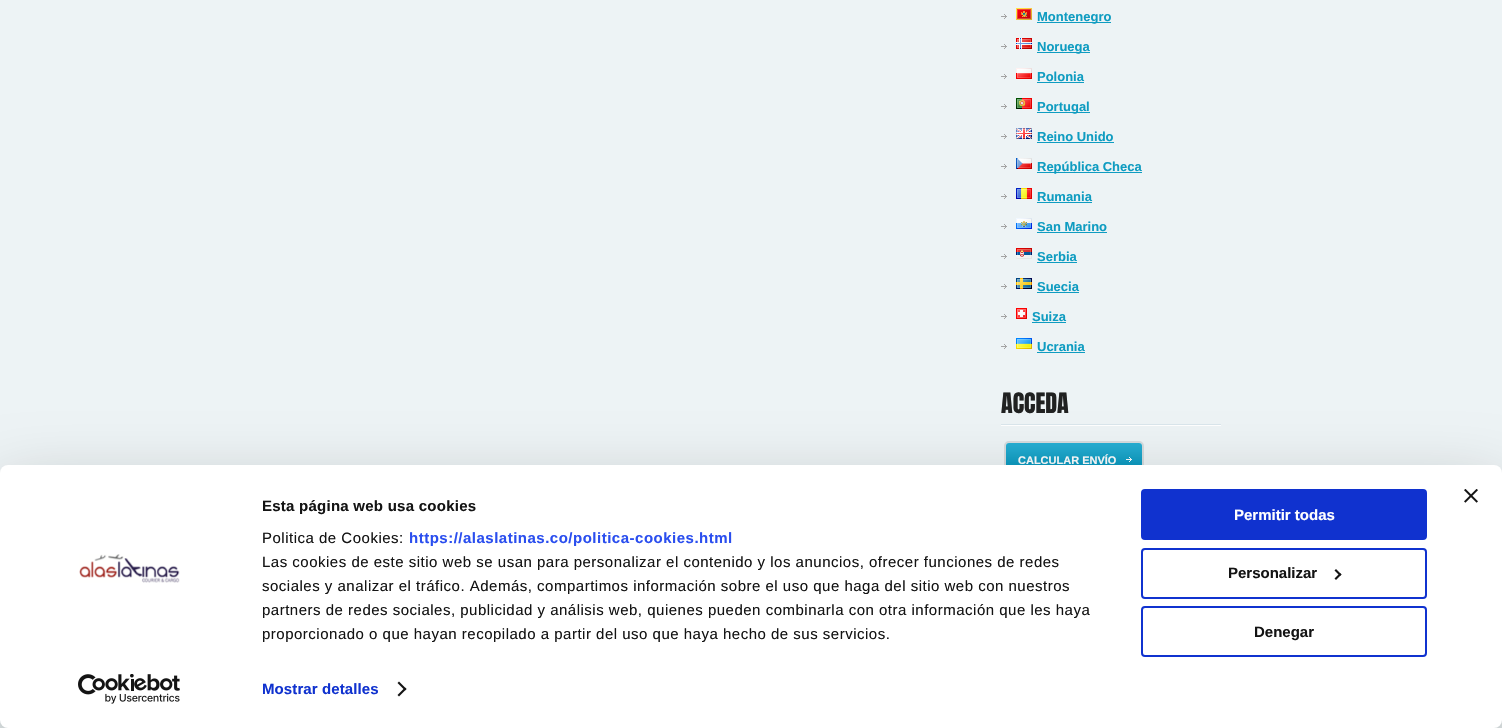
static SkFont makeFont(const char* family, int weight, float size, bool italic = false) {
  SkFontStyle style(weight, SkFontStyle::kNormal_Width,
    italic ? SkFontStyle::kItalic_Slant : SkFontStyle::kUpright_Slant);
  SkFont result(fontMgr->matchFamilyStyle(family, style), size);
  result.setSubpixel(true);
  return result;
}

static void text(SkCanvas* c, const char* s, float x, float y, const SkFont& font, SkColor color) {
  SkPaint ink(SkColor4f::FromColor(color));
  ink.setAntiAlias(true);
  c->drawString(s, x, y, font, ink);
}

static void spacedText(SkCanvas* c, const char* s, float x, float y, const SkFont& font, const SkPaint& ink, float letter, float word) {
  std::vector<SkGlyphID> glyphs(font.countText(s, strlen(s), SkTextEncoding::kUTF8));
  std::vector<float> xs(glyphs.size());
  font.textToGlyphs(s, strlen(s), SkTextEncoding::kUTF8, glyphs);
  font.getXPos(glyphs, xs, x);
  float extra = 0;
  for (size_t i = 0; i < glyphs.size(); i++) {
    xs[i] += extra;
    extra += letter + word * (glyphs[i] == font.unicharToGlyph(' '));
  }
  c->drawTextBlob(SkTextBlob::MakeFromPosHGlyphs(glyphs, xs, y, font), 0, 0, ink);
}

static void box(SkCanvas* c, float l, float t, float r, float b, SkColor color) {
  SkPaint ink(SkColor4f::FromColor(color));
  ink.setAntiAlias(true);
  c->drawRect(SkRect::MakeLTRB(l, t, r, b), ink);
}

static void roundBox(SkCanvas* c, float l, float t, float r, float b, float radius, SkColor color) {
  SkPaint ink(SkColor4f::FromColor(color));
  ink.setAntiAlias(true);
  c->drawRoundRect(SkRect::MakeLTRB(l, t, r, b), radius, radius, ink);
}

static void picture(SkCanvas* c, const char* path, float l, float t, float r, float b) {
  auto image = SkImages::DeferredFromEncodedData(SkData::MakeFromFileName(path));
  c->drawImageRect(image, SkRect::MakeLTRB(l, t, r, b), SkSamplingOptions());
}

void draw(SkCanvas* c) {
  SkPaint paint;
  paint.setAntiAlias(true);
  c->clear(0xffedf3f5);
  picture(c, "img_01.png", 1001, 14, 1007, 19);
  picture(c, "img_02.png", 1016, 8, 1032, 20);
  box(c, 1037, 22, 1111, 23, 0xff0f9cc1);
  SkFont face1 = makeFont("Liberation Sans", 700, 13);
  text(c, "Montenegro", 1037, 21, face1, 0xff0f9cc1);
  picture(c, "img_01.png", 1001, 44, 1007, 49);
  picture(c, "img_03.png", 1016, 38, 1032, 49);
  box(c, 1037, 52, 1090, 53, 0xff0f9cc1);
  text(c, "Noruega", 1037, 51, face1, 0xff0f9cc1);
  picture(c, "img_01.png", 1001, 74, 1007, 79);
  picture(c, "img_04.png", 1016, 68, 1032, 79);
  text(c, "Polonia", 1037, 81, face1, 0xff0f9cc1);
  box(c, 1037, 82, 1084, 83, 0xff0f9cc1);
  picture(c, "img_01.png", 1001, 104, 1007, 109);
  picture(c, "img_05.png", 1016, 98, 1032, 109);
  box(c, 1037, 112, 1090, 113, 0xff0f9cc1);
  text(c, "Portugal", 1037, 111, face1, 0xff0f9cc1);
  picture(c, "img_01.png", 1001, 134, 1007, 139);
  picture(c, "img_06.png", 1016, 128, 1032, 139);
  text(c, "Reino Unido", 1037, 141, face1, 0xff0f9cc1);
  box(c, 1037, 142, 1114, 143, 0xff0f9cc1);
  picture(c, "img_01.png", 1001, 164, 1007, 169);
  picture(c, "img_07.png", 1016, 158, 1032, 169);
  box(c, 1037, 172, 1142, 173, 0xff0f9cc1);
  text(c, "República Checa", 1037, 171, face1, 0xff0f9cc1);
  picture(c, "img_01.png", 1001, 194, 1007, 199);
  picture(c, "img_08.png", 1016, 188, 1032, 199);
  text(c, "Rumania", 1037, 201, face1, 0xff0f9cc1);
  box(c, 1037, 202, 1092, 203, 0xff0f9cc1);
  picture(c, "img_01.png", 1001, 224, 1007, 229);
  picture(c, "img_09.png", 1016, 218, 1032, 229);
  text(c, "San Marino", 1037, 231, face1, 0xff0f9cc1);
  box(c, 1037, 232, 1107, 233, 0xff0f9cc1);
  picture(c, "img_01.png", 1001, 254, 1007, 259);
  picture(c, "img_10.png", 1016, 248, 1032, 259);
  text(c, "Serbia", 1037, 261, face1, 0xff0f9cc1);
  box(c, 1037, 262, 1077, 263, 0xff0f9cc1);
  picture(c, "img_01.png", 1001, 284, 1007, 289);
  picture(c, "img_11.png", 1016, 278, 1032, 289);
  text(c, "Suecia", 1037, 291, face1, 0xff0f9cc1);
  box(c, 1037, 292, 1079, 293, 0xff0f9cc1);
  picture(c, "img_01.png", 1001, 314, 1007, 319);
  picture(c, "img_12.png", 1016, 308, 1027, 319);
  text(c, "Suiza", 1032, 321, face1, 0xff0f9cc1);
  box(c, 1032, 322, 1066, 323, 0xff0f9cc1);
  picture(c, "img_01.png", 1001, 344, 1007, 349);
  picture(c, "img_13.png", 1016, 338, 1032, 349);
  text(c, "Ucrania", 1037, 351, face1, 0xff0f9cc1);
  box(c, 1037, 352, 1085, 353, 0xff0f9cc1);
  picture(c, "img_14.png", 1001, 424, 1221, 426);
  SkFont face2 = makeFont("Anton", 400, 24);
  text(c, "ACCEDA", 1001, 413, face2, 0xff202121);
  paint.setStyle(SkPaint::kStroke_Style);
  paint.setStrokeWidth(2);
  paint.setColor(0xffd5dbdd);
  c->drawRoundRect(SkRect::MakeLTRB(1005, 442, 1143, 476), 4, 4, paint);
  picture(c, "img_15.png", 1006, 443, 1142, 465);
  SkFont face3 = makeFont("Liberation Sans", 700, 11);
  text(c, "CALCULAR ENVÍO", 1018, 464, face3, 0xffffffff);
  picture(c, "img_16.png", 1126, 457, 1132, 462);
  paint.setStyle(SkPaint::kFill_Style);
  paint.setColor(0x4d000000);
  paint.setMaskFilter(SkMaskFilter::MakeBlur(kNormal_SkBlurStyle, 35));
  c->drawRoundRect(SkRect::MakeLTRB(0, 495, 1502, 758), 8, 8, paint);
  paint.setMaskFilter(nullptr);
  roundBox(c, 0, 465, 1502, 728, 8, 0xffffffff);
  picture(c, "img_17.png", 1464, 489, 1478, 503);
  picture(c, "img_18.png", 79, 554, 180, 583);
  picture(c, "img_19.png", 78, 674, 180, 704);
  SkFont face4 = makeFont("Liberation Sans", 700, 15);
  paint.setColor(0xff141414);
  spacedText(c, "Esta página web usa cookies", 262, 511, face4, paint, 0.25f, 0);
  SkFont face5 = makeFont("Liberation Sans", 400, 15);
  spacedText(c, "Politica de Cookies:", 262, 543, face5, paint, 0.5f, 0);
  paint.setColor(0xff2a4eef);
  spacedText(c, "https://alaslatinas.co/politica-cookies.html", 409, 543, face4, paint, 0.5f, 0);
  paint.setColor(0xff141414);
  spacedText(c, "Las cookies de este sitio web se usan para personalizar el contenido y los anuncios, ofrecer funciones de redes", 262, 567, face5, paint, 0.5f, 0);
  spacedText(c, "sociales y analizar el tráfico. Además, compartimos información sobre el uso que haga del sitio web con nuestros", 262, 591, face5, paint, 0.5f, 0);
  spacedText(c, "partners de redes sociales, publicidad y análisis web, quienes pueden combinarla con otra información que les haya", 262, 615, face5, paint, 0.5f, 0);
  spacedText(c, "proporcionado o que hayan recopilado a partir del uso que haya hecho de sus servicios.", 262, 639, face5, paint, 0.5f, 0);
  paint.setColor(0xff1032cf);
  spacedText(c, "Mostrar detalles", 262, 694, face4, paint, 0.1f, 0);
  paint.setColor(0xff141414);
  c->drawPath(SkPathBuilder().moveTo(399, 681.5f).lineTo(406.5f, 689).lineTo(405, 690.5f).lineTo(397.5f, 683).close().detach(), paint);
  c->drawPath(SkPathBuilder().moveTo(405, 687.5f).lineTo(406.5f, 689).lineTo(399, 696.5f).lineTo(397.5f, 695).close().detach(), paint);
  paint.setColor(0xff1032cf);
  c->drawRoundRect(SkRect::MakeLTRB(1142, 490, 1426, 539), 3, 3, paint);
  paint.setStyle(SkPaint::kStroke_Style);
  c->drawRoundRect(SkRect::MakeLTRB(1142, 490, 1426, 539), 3, 3, paint);
  text(c, "Permitir todas", 1234, 520, face4, 0xffffffff);
  c->drawRoundRect(SkRect::MakeLTRB(1142, 549, 1426, 598), 3, 3, paint);
  text(c, "Personalizar", 1228, 578, face4, 0xff141414);
  paint.setStyle(SkPaint::kFill_Style);
  paint.setColor(0xff141414);
  c->drawPath(SkPathBuilder().moveTo(1336, 569).lineTo(1341.5f, 574.5f).lineTo(1340, 576).lineTo(1334.5f, 570.5f).close().detach(), paint);
  c->drawPath(SkPathBuilder().moveTo(1340, 573).lineTo(1341.5f, 574.5f).lineTo(1336, 580).lineTo(1334.5f, 578.5f).close().detach(), paint);
  paint.setStyle(SkPaint::kStroke_Style);
  paint.setColor(0xff1032cf);
  c->drawRoundRect(SkRect::MakeLTRB(1142, 607, 1426, 656), 3, 3, paint);
  text(c, "Denegar", 1254, 637, face4, 0xff141414);
}
